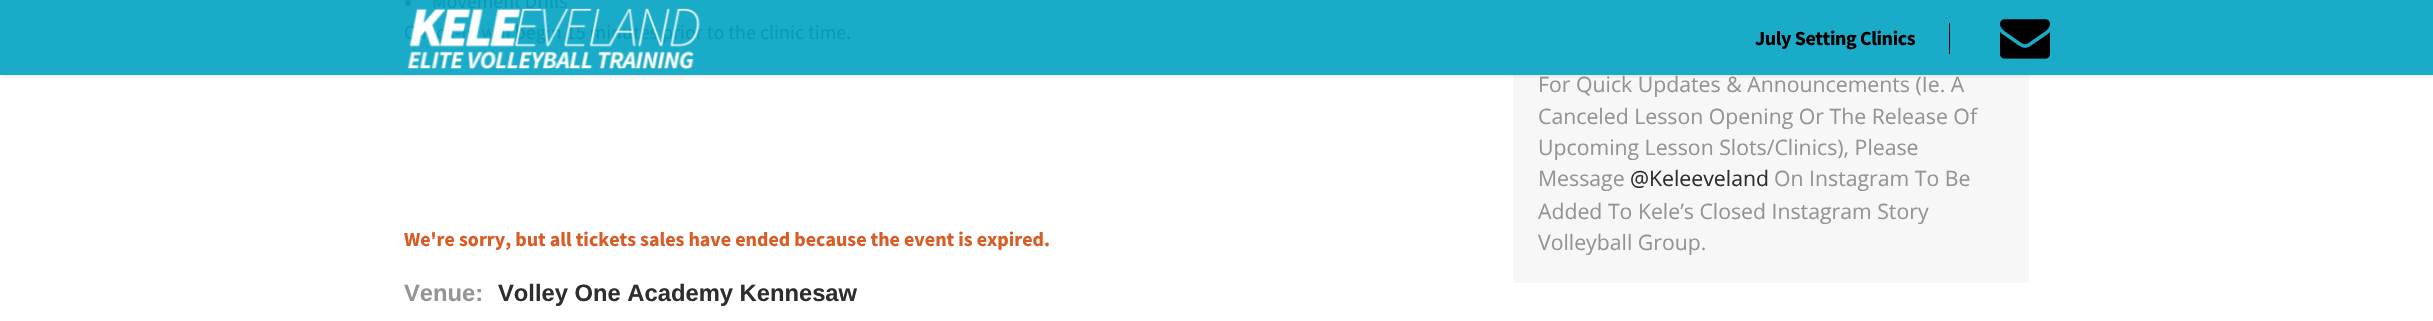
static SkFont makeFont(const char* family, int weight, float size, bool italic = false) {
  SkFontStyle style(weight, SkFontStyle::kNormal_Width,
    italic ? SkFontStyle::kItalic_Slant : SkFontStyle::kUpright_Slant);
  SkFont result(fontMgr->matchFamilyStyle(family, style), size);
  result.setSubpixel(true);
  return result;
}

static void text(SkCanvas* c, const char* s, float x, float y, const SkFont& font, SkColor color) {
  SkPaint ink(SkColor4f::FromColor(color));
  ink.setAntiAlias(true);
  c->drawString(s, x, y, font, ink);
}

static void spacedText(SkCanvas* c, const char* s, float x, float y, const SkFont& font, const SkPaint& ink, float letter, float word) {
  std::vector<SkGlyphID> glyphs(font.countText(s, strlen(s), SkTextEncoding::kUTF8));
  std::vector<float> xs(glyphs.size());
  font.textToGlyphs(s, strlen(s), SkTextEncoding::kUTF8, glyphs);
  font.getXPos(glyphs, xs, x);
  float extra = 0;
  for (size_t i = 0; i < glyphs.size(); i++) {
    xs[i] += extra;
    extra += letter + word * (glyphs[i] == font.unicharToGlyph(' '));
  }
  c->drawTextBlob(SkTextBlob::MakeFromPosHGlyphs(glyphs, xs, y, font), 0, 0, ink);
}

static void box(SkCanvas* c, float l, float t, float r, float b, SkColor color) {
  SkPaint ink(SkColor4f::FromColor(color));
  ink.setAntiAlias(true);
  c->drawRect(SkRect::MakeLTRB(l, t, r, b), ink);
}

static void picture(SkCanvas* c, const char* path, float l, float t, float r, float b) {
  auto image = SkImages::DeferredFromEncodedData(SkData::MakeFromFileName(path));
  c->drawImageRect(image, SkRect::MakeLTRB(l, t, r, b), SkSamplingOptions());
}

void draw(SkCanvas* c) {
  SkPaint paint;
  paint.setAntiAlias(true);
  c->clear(0xffffffff);
  box(c, 0, 0, 2433, 75, 0xff19abc8);
  paint.setColor(0xff089ab6);
  c->drawCircle(408, 3, 3, paint);
  SkFont face1 = makeFont("Source Sans Pro", 400, 20);
  text(c, "Movement Drills", 432, 8, face1, 0xff089ab6);
  text(c, "Check-in will begin 15 minutes prior to the clinic time.", 404, 39, face1, 0xff089ab6);
  SkFont face2 = makeFont("Source Sans Pro", 700, 20);
  text(c, "We're sorry, but all tickets sales have ended because the event is expired.", 404, 246, face2, 0xffd95c26);
  SkFont face3 = makeFont("Liberation Sans", 700, 23.75f);
  text(c, "Venue:", 404, 301, face3, 0xff949494);
  text(c, "Volley One Academy Kennesaw", 498, 301, face3, 0xff2e2e2e);
  box(c, 1513, 75, 2029, 283, 0xfff7f7f7);
  SkFont face4 = makeFont("Open Sans", 400, 21.25f);
  text(c, "For Quick Updates & Announcements (Ie. A", 1538, 92, face4, 0xff949494);
  text(c, "Canceled Lesson Opening Or The Release Of", 1538, 124, face4, 0xff949494);
  text(c, "Upcoming Lesson Slots/Clinics), Please", 1538, 155, face4, 0xff949494);
  text(c, "Message", 1538, 186, face4, 0xff949494);
  text(c, "@Keleeveland", 1630, 186, face4, 0xff2e2e2e);
  text(c, "On Instagram To Be", 1774, 186, face4, 0xff949494);
  text(c, "Added To Kele’s Closed Instagram Story", 1538, 219, face4, 0xff949494);
  text(c, "Volleyball Group.", 1538, 250, face4, 0xff949494);
  c->save();
  c->clipRect(SkRect::MakeLTRB(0, 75, 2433, 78));
  paint.setColor(0x1c000000);
  paint.setMaskFilter(SkMaskFilter::MakeBlur(kNormal_SkBlurStyle, 2));
  c->drawRect(SkRect::MakeLTRB(0, 1, 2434, 76), paint);
  paint.setMaskFilter(nullptr);
  c->restore();
  picture(c, "img_01.png", 407, 8, 701, 70);
  paint.setColor(0xff000000);
  spacedText(c, "July Setting Clinics", 1755, 45, face2, paint, -0.4f, 0);
  box(c, 1949, 23, 1950, 54, 0xff000000);
  picture(c, "img_02.png", 2000, 19, 2050, 59);
}
